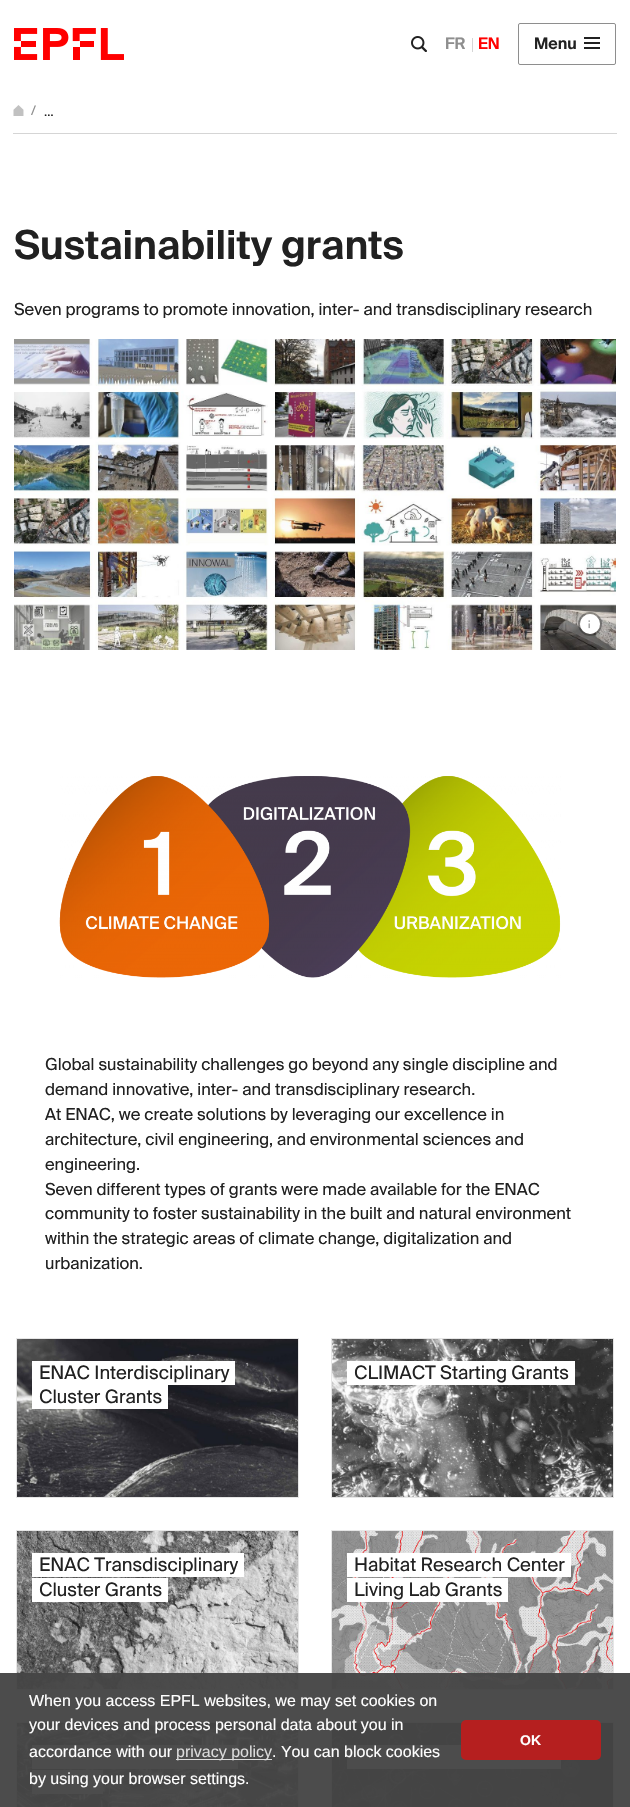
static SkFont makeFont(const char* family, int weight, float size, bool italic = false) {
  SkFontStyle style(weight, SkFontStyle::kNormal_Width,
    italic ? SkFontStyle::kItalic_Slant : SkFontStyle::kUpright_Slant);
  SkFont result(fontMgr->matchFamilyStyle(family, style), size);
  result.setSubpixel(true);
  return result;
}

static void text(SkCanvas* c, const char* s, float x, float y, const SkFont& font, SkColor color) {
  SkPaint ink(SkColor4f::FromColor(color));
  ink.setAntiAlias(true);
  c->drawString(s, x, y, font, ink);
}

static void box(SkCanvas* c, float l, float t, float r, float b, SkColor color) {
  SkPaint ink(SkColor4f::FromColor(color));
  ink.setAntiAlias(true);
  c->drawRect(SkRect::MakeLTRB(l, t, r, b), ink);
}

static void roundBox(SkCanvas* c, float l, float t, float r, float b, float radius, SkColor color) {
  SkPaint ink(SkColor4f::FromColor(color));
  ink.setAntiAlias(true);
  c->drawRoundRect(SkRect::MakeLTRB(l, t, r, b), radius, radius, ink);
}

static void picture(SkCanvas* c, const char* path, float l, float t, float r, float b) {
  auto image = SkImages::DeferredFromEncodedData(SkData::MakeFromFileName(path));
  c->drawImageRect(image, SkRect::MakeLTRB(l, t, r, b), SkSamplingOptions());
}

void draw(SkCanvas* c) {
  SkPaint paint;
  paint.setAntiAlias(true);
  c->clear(0xffffffff);
  picture(c, "img_01.png", 14, 28, 124, 60);
  picture(c, "img_02.png", 411, 36, 427, 52);
  SkFont face1 = makeFont("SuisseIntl", 600, 16);
  text(c, "FR", 445, 49, face1, 0xff8e8e8e);
  box(c, 472, 38, 473, 52, 0xffd5d5d5);
  text(c, "EN", 478, 49, face1, 0xffff0000);
  paint.setStyle(SkPaint::kStroke_Style);
  paint.setStrokeWidth(1);
  paint.setColor(0xff8e8e8e);
  c->drawRoundRect(SkRect::MakeLTRB(518.5f, 23.5f, 615.5f, 64.5f), 1.5f, 1.5f, paint);
  text(c, "Menu", 534, 49, face1, 0xff212121);
  box(c, 584, 37, 600, 39, 0xff212121);
  box(c, 584, 42, 600, 44, 0xff212121);
  box(c, 584, 47, 600, 49, 0xff212121);
  box(c, 13, 133, 617, 134, 0xffd5d5d5);
  picture(c, "img_03.png", 13, 105, 24, 116);
  SkFont face2 = makeFont("SuisseIntl", 400, 13);
  text(c, "/", 31, 115, face2, 0xff8e8e8e);
  text(c, "…", 44, 116, face2, 0xff212121);
  SkFont face3 = makeFont("SuisseIntl", 600, 40);
  text(c, "Sustainability grants", 14, 259, face3, 0xff212121);
  SkFont face4 = makeFont("SuisseIntl", 400, 16.55f);
  text(c, "Seven programs to promote innovation, inter- and transdisciplinary research", 14, 315, face4, 0xff212121);
  picture(c, "img_04.png", 14, 339, 616, 650);
  paint.setStrokeWidth(2);
  paint.setColor(0x66212121);
  c->drawCircle(590, 624, 11, paint);
  paint.setStyle(SkPaint::kFill_Style);
  paint.setColor(0xffffffff);
  c->drawCircle(590, 624, 10, paint);
  picture(c, "img_05.png", 588, 620, 590, 629);
  picture(c, "img_06.png", 59, 776, 561, 978);
  text(c, "Global sustainability challenges go beyond any single discipline and", 45, 1070, face4, 0xff212121);
  text(c, "demand innovative, inter- and transdisciplinary research.", 45, 1095, face4, 0xff212121);
  text(c, "At ENAC, we create solutions by leveraging our excellence in", 45, 1120, face4, 0xff212121);
  text(c, "architecture, civil engineering, and environmental sciences and", 45, 1145, face4, 0xff212121);
  text(c, "engineering.", 45, 1170, face4, 0xff212121);
  text(c, "Seven different types of grants were made available for the ENAC", 45, 1195, face4, 0xff212121);
  text(c, "community to foster sustainability in the built and natural environment", 45, 1219, face4, 0xff212121);
  text(c, "within the strategic areas of climate change, digitalization and", 45, 1244, face4, 0xff212121);
  text(c, "urbanization.", 45, 1269, face4, 0xff212121);
  paint.setStyle(SkPaint::kStroke_Style);
  paint.setStrokeWidth(1);
  paint.setColor(0xffe6e6e6);
  c->drawRect(SkRect::MakeLTRB(16.5f, 1338.5f, 298.5f, 1497.5f), paint);
  picture(c, "img_07.png", 17, 1339, 298, 1497);
  box(c, 39, 1361, 235, 1385, 0xffffffff);
  SkFont face5 = makeFont("SuisseIntl", 400, 18.5f);
  text(c, "ENAC Interdisciplinary", 39, 1379, face5, 0xff212121);
  box(c, 32, 1361, 39, 1409, 0xffffffff);
  box(c, 39, 1385, 168, 1409, 0xffffffff);
  text(c, "Cluster Grants", 39, 1403, face5, 0xff212121);
  c->drawRect(SkRect::MakeLTRB(331.5f, 1338.5f, 613.5f, 1497.5f), paint);
  picture(c, "img_08.png", 332, 1339, 613, 1497);
  box(c, 354, 1361, 575, 1385, 0xffffffff);
  text(c, "CLIMACT Starting Grants", 354, 1379, face5, 0xff212121);
  box(c, 347, 1361, 354, 1385, 0xffffffff);
  c->drawRect(SkRect::MakeLTRB(16.5f, 1530.5f, 298.5f, 1689.5f), paint);
  picture(c, "img_09.png", 17, 1531, 298, 1689);
  box(c, 39, 1553, 244, 1577, 0xffffffff);
  text(c, "ENAC Transdisciplinary", 39, 1571, face5, 0xff212121);
  box(c, 32, 1553, 39, 1577, 0xffffffff);
  box(c, 39, 1578, 168, 1602, 0xffffffff);
  text(c, "Cluster Grants", 39, 1596, face5, 0xff212121);
  box(c, 32, 1578, 39, 1602, 0xffffffff);
  c->drawRect(SkRect::MakeLTRB(331.5f, 1530.5f, 613.5f, 1689.5f), paint);
  picture(c, "img_10.png", 332, 1531, 613, 1689);
  box(c, 354, 1553, 571, 1577, 0xffffffff);
  text(c, "Habitat Research Center", 354, 1571, face5, 0xff212121);
  box(c, 347, 1553, 354, 1577, 0xffffffff);
  box(c, 354, 1578, 508, 1602, 0xffffffff);
  text(c, "Living Lab Grants", 354, 1596, face5, 0xff212121);
  box(c, 347, 1578, 354, 1602, 0xffffffff);
  c->drawRect(SkRect::MakeLTRB(16.5f, 1722.5f, 298.5f, 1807.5f), paint);
  picture(c, "img_11.png", 17, 1723, 298, 1807);
  box(c, 32, 1745, 39, 1769, 0xffffffff);
  box(c, 39, 1745, 238, 1769, 0xffffffff);
  box(c, 32, 1770, 39, 1794, 0xffffffff);
  box(c, 39, 1770, 103, 1794, 0xffffffff);
  c->drawRect(SkRect::MakeLTRB(331.5f, 1722.5f, 613.5f, 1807.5f), paint);
  picture(c, "img_12.png", 332, 1723, 613, 1807);
  box(c, 347, 1745, 554, 1769, 0xffffffff);
  box(c, 554, 1760, 561, 1769, 0xffffffff);
  box(c, 0, 1673, 630, 1807, 0xf5454545);
  SkFont face6 = makeFont("Liberation Sans", 400, 16);
  text(c, "When you access EPFL websites, we may set cookies on", 29, 1706, face6, 0xffffffff);
  text(c, "your devices and process personal data about you in", 29, 1730, face6, 0xffffffff);
  text(c, "accordance with our", 29, 1757, face6, 0xffffffff);
  box(c, 176, 1759, 272, 1760, 0xccffffff);
  text(c, "privacy policy", 176, 1757, face6, 0xffdbdbdb);
  text(c, ". You can block cookies", 272, 1757, face6, 0xffffffff);
  text(c, "by using your browser settings.", 29, 1784, face6, 0xffffffff);
  roundBox(c, 461, 1720, 601, 1760, 5, 0xffb51f1f);
  SkFont face7 = makeFont("Liberation Sans", 700, 14);
  text(c, "OK", 520, 1745, face7, 0xffffffff);
}
